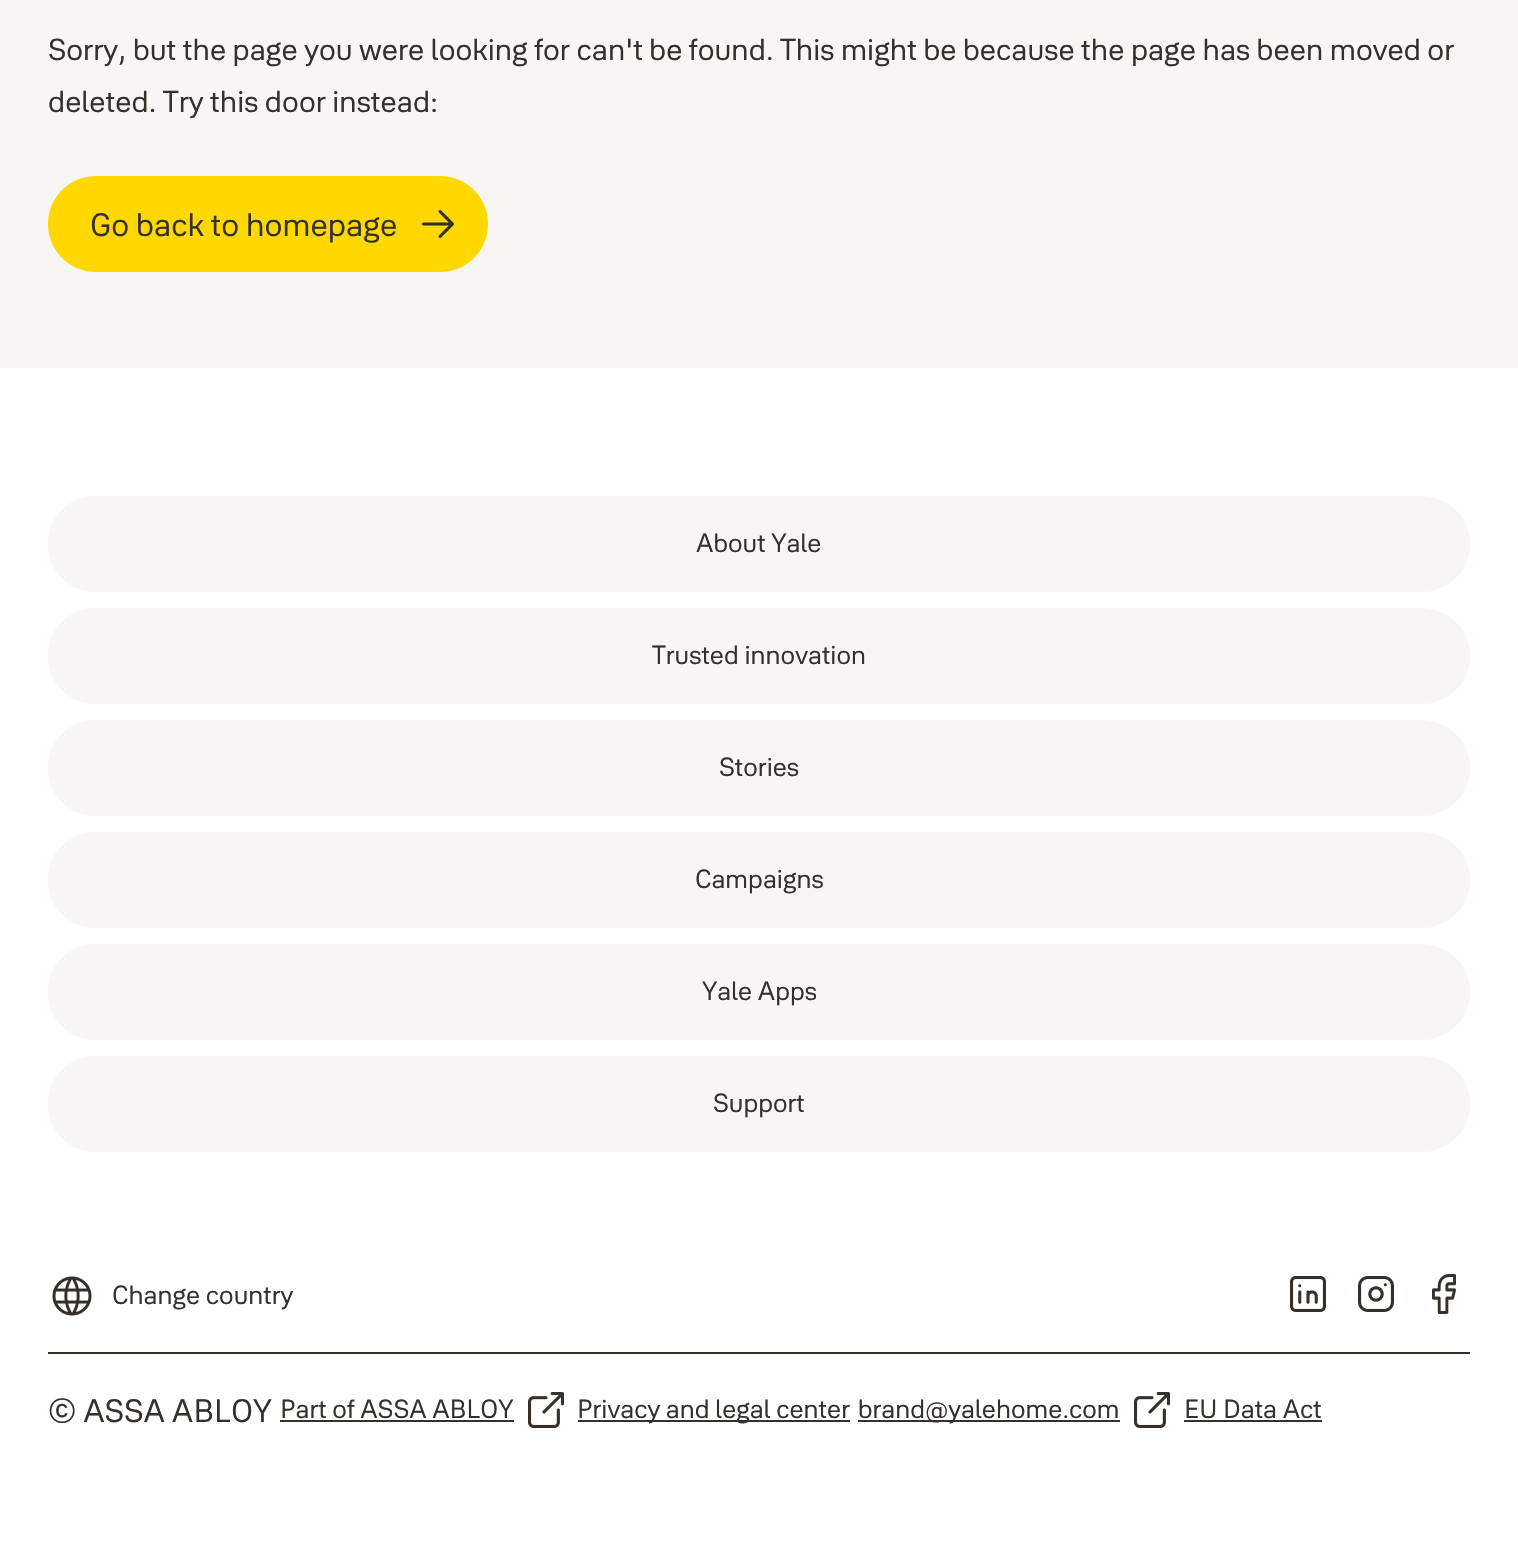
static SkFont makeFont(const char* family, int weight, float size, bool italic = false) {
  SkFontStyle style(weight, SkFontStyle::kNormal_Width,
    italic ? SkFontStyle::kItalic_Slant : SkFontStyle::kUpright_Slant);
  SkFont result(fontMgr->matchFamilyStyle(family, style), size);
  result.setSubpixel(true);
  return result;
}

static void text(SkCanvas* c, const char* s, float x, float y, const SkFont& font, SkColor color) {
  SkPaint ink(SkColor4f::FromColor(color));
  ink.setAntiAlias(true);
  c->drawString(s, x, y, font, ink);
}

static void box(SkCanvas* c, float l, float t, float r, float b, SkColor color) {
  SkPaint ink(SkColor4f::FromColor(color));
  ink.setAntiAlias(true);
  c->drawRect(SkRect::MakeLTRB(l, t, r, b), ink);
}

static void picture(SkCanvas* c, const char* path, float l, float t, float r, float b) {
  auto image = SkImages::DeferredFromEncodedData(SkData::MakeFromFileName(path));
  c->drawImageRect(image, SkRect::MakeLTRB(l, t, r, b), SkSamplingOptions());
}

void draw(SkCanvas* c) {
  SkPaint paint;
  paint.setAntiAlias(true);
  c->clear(0xffffffff);
  box(c, 0, 0, 1518, 368, 0xfff7f6f4);
  SkFont face1 = makeFont("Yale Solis", 400, 30);
  text(c, "Sorry, but the page you were looking for can't be found. This might be because the page has been moved or", 48, 60, face1, 0xff36302a);
  text(c, "deleted. Try this door instead:", 48, 112, face1, 0xff36302a);
  paint.setColor(0xffffd800);
  c->drawRoundRect(SkRect::MakeLTRB(49, 177, 487, 271), 47, 47, paint);
  paint.setStyle(SkPaint::kStroke_Style);
  paint.setStrokeWidth(2);
  c->drawRoundRect(SkRect::MakeLTRB(49, 177, 487, 271), 47, 47, paint);
  SkFont face2 = makeFont("Yale Solis", 400, 32);
  text(c, "Go back to homepage", 90, 236, face2, 0xff36302a);
  picture(c, "img_01.png", 422, 210, 454, 238);
  paint.setStyle(SkPaint::kFill_Style);
  paint.setColor(0xfff7f6f4);
  c->drawRoundRect(SkRect::MakeLTRB(49, 497, 1469, 591), 47, 47, paint);
  paint.setStyle(SkPaint::kStroke_Style);
  c->drawRoundRect(SkRect::MakeLTRB(49, 497, 1469, 591), 47, 47, paint);
  SkFont face3 = makeFont("Yale Solis", 400, 26);
  text(c, "About Yale", 696, 552, face3, 0xff36302a);
  paint.setStyle(SkPaint::kFill_Style);
  c->drawRoundRect(SkRect::MakeLTRB(49, 609, 1469, 703), 47, 47, paint);
  paint.setStyle(SkPaint::kStroke_Style);
  c->drawRoundRect(SkRect::MakeLTRB(49, 609, 1469, 703), 47, 47, paint);
  text(c, "Trusted innovation", 652, 664, face3, 0xff36302a);
  paint.setStyle(SkPaint::kFill_Style);
  c->drawRoundRect(SkRect::MakeLTRB(49, 721, 1469, 815), 47, 47, paint);
  paint.setStyle(SkPaint::kStroke_Style);
  c->drawRoundRect(SkRect::MakeLTRB(49, 721, 1469, 815), 47, 47, paint);
  text(c, "Stories", 719, 776, face3, 0xff36302a);
  paint.setStyle(SkPaint::kFill_Style);
  c->drawRoundRect(SkRect::MakeLTRB(49, 833, 1469, 927), 47, 47, paint);
  paint.setStyle(SkPaint::kStroke_Style);
  c->drawRoundRect(SkRect::MakeLTRB(49, 833, 1469, 927), 47, 47, paint);
  text(c, "Campaigns", 695, 888, face3, 0xff36302a);
  paint.setStyle(SkPaint::kFill_Style);
  c->drawRoundRect(SkRect::MakeLTRB(49, 945, 1469, 1039), 47, 47, paint);
  paint.setStyle(SkPaint::kStroke_Style);
  c->drawRoundRect(SkRect::MakeLTRB(49, 945, 1469, 1039), 47, 47, paint);
  text(c, "Yale Apps", 702, 1000, face3, 0xff36302a);
  paint.setStyle(SkPaint::kFill_Style);
  c->drawRoundRect(SkRect::MakeLTRB(49, 1057, 1469, 1151), 47, 47, paint);
  paint.setStyle(SkPaint::kStroke_Style);
  c->drawRoundRect(SkRect::MakeLTRB(49, 1057, 1469, 1151), 47, 47, paint);
  text(c, "Support", 713, 1112, face3, 0xff36302a);
  picture(c, "img_02.png", 52, 1276, 92, 1316);
  text(c, "Change country", 112, 1304, face3, 0xff36302a);
  picture(c, "img_03.png", 1290, 1276, 1326, 1312);
  picture(c, "img_04.png", 1358, 1276, 1394, 1312);
  picture(c, "img_05.png", 1432, 1274, 1456, 1314);
  box(c, 48, 1352, 1470, 1354, 0xff36302a);
  text(c, "© ASSA ABLOY", 48, 1422, face2, 0xff36302a);
  text(c, "Part of ASSA ABLOY", 280, 1418, face3, 0xff36302a);
  box(c, 280, 1420, 514, 1422, 0xff36302a);
  picture(c, "img_06.png", 528, 1392, 564, 1428);
  box(c, 578, 1420, 850, 1422, 0xff36302a);
  text(c, "Privacy and legal center", 577, 1418, face3, 0xff36302a);
  box(c, 858, 1420, 1120, 1422, 0xff36302a);
  text(c, "brand@yalehome.com", 858, 1418, face3, 0xff36302a);
  picture(c, "img_06.png", 1134, 1392, 1170, 1428);
  text(c, "EU Data Act", 1184, 1418, face3, 0xff36302a);
  box(c, 1184, 1420, 1322, 1422, 0xff36302a);
}
